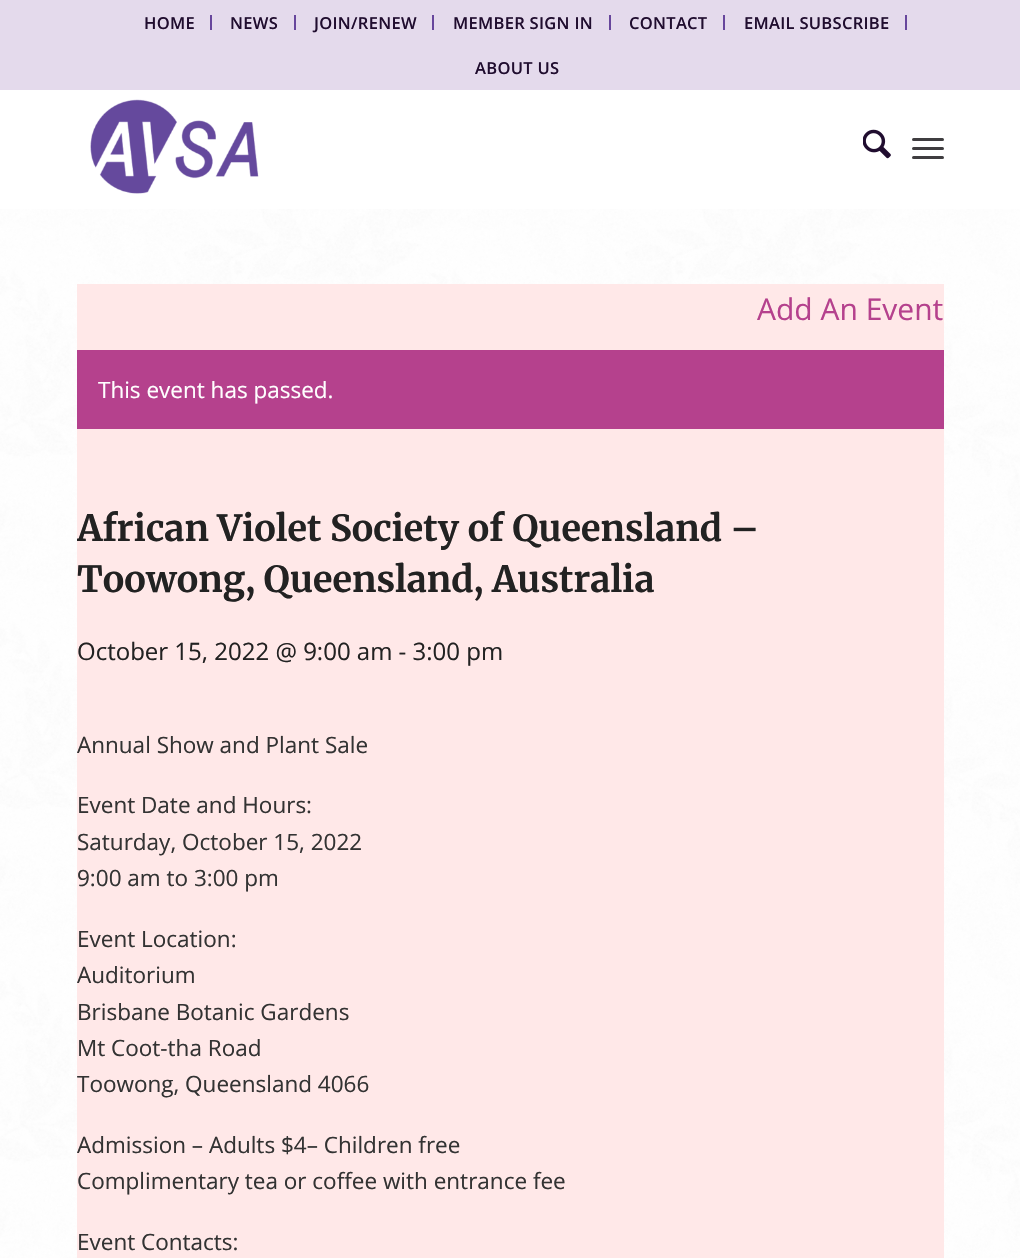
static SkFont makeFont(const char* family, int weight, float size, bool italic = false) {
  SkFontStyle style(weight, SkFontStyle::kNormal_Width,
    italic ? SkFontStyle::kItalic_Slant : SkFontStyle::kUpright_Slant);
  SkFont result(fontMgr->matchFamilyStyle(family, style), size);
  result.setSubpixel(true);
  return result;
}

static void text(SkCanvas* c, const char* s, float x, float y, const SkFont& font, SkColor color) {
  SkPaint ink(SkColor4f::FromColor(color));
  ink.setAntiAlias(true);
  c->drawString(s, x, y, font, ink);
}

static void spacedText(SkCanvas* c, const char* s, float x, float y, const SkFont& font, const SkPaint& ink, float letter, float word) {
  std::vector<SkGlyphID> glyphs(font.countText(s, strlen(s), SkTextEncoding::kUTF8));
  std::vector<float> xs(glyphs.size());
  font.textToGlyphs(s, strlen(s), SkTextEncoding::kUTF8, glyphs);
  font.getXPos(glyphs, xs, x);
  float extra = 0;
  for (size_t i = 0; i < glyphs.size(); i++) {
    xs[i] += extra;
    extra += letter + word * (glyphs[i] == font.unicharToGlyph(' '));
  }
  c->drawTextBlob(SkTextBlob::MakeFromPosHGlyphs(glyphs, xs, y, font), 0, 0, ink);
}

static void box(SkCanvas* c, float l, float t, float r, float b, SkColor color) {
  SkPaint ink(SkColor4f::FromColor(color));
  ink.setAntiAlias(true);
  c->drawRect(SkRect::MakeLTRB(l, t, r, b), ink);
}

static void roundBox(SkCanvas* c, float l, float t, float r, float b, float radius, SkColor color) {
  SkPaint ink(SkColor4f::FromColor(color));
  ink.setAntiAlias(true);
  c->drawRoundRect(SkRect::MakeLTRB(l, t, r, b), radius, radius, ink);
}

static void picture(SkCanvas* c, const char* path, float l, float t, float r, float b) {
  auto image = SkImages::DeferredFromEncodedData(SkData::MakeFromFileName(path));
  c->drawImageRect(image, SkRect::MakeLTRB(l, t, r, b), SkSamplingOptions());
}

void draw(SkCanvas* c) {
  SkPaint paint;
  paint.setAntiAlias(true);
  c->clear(0xffffffff);
  box(c, 0, 0, 1020, 90, 0xffe4daec);
  box(c, 210, 15, 212, 30, 0xff67469c);
  SkFont face1 = makeFont("Open Sans", 600, 16.5f);
  paint.setColor(0xff200d2f);
  spacedText(c, "HOME", 144, 29, face1, paint, 0.3f, 0);
  box(c, 294, 15, 296, 30, 0xff67469c);
  spacedText(c, "NEWS", 230, 29, face1, paint, 0.3f, 0);
  box(c, 432, 15, 434, 30, 0xff67469c);
  spacedText(c, "JOIN/RENEW", 314, 29, face1, paint, 0.3f, 0);
  box(c, 609, 15, 611, 30, 0xff67469c);
  spacedText(c, "MEMBER SIGN IN", 453, 29, face1, paint, 0.3f, 0);
  box(c, 723, 15, 725, 30, 0xff67469c);
  spacedText(c, "CONTACT", 629, 29, face1, paint, 0.3f, 0);
  box(c, 905, 15, 907, 30, 0xff67469c);
  spacedText(c, "EMAIL SUBSCRIBE", 744, 29, face1, paint, 0.3f, 0);
  spacedText(c, "ABOUT US", 475, 74, face1, paint, 0.3f, 0);
  picture(c, "img_01.png", 90, 99, 259, 194);
  picture(c, "img_02.png", 863, 129, 891, 159);
  roundBox(c, 912, 147, 944, 150, 1.5f, 0xff3f3d40);
  roundBox(c, 912, 138, 944, 141, 1.5f, 0xff3f3d40);
  roundBox(c, 912, 156, 944, 159, 1.5f, 0xff3f3d40);
  picture(c, "img_03.png", 0, 209, 1020, 1258);
  box(c, 77, 284, 944, 1258, 0xffffe8e8);
  SkFont face2 = makeFont("Open Sans", 400, 30);
  text(c, "Add An Event", 757, 320, face2, 0xffb5418d);
  box(c, 77, 350, 944, 429, 0xffb5418d);
  SkFont face3 = makeFont("Open Sans", 400, 22.5f);
  text(c, "This event has passed.", 98, 398, face3, 0xffffffff);
  c->save();
  c->clipRect(SkRect::MakeLTRB(77, 504, 944, 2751));
  SkFont face4 = makeFont("Merriweather", 700, 36);
  text(c, "African Violet Society of Queensland –", 77, 541, face4, 0xff222222);
  c->restore();
  text(c, "Toowong, Queensland, Australia", 77, 592, face4, 0xff222222);
  SkFont face5 = makeFont("Open Sans", 400, 24);
  text(c, "October 15, 2022 @ 9:00 am - 3:00 pm", 77, 660, face5, 0xff222222);
  text(c, "Annual Show and Plant Sale", 77, 753, face3, 0xff333333);
  text(c, "Event Date and Hours:", 77, 813, face3, 0xff333333);
  text(c, "Saturday, October 15, 2022", 77, 850, face3, 0xff333333);
  text(c, "9:00 am to 3:00 pm", 77, 886, face3, 0xff333333);
  text(c, "Event Location:", 77, 947, face3, 0xff333333);
  text(c, "Auditorium", 77, 983, face3, 0xff333333);
  text(c, "Brisbane Botanic Gardens", 77, 1020, face3, 0xff333333);
  text(c, "Mt Coot-tha Road", 77, 1056, face3, 0xff333333);
  text(c, "Toowong, Queensland 4066", 77, 1092, face3, 0xff333333);
  text(c, "Admission – Adults $4– Children free", 77, 1153, face3, 0xff333333);
  text(c, "Complimentary tea or coffee with entrance fee", 77, 1189, face3, 0xff333333);
  text(c, "Event Contacts:", 77, 1250, face3, 0xff333333);
}
